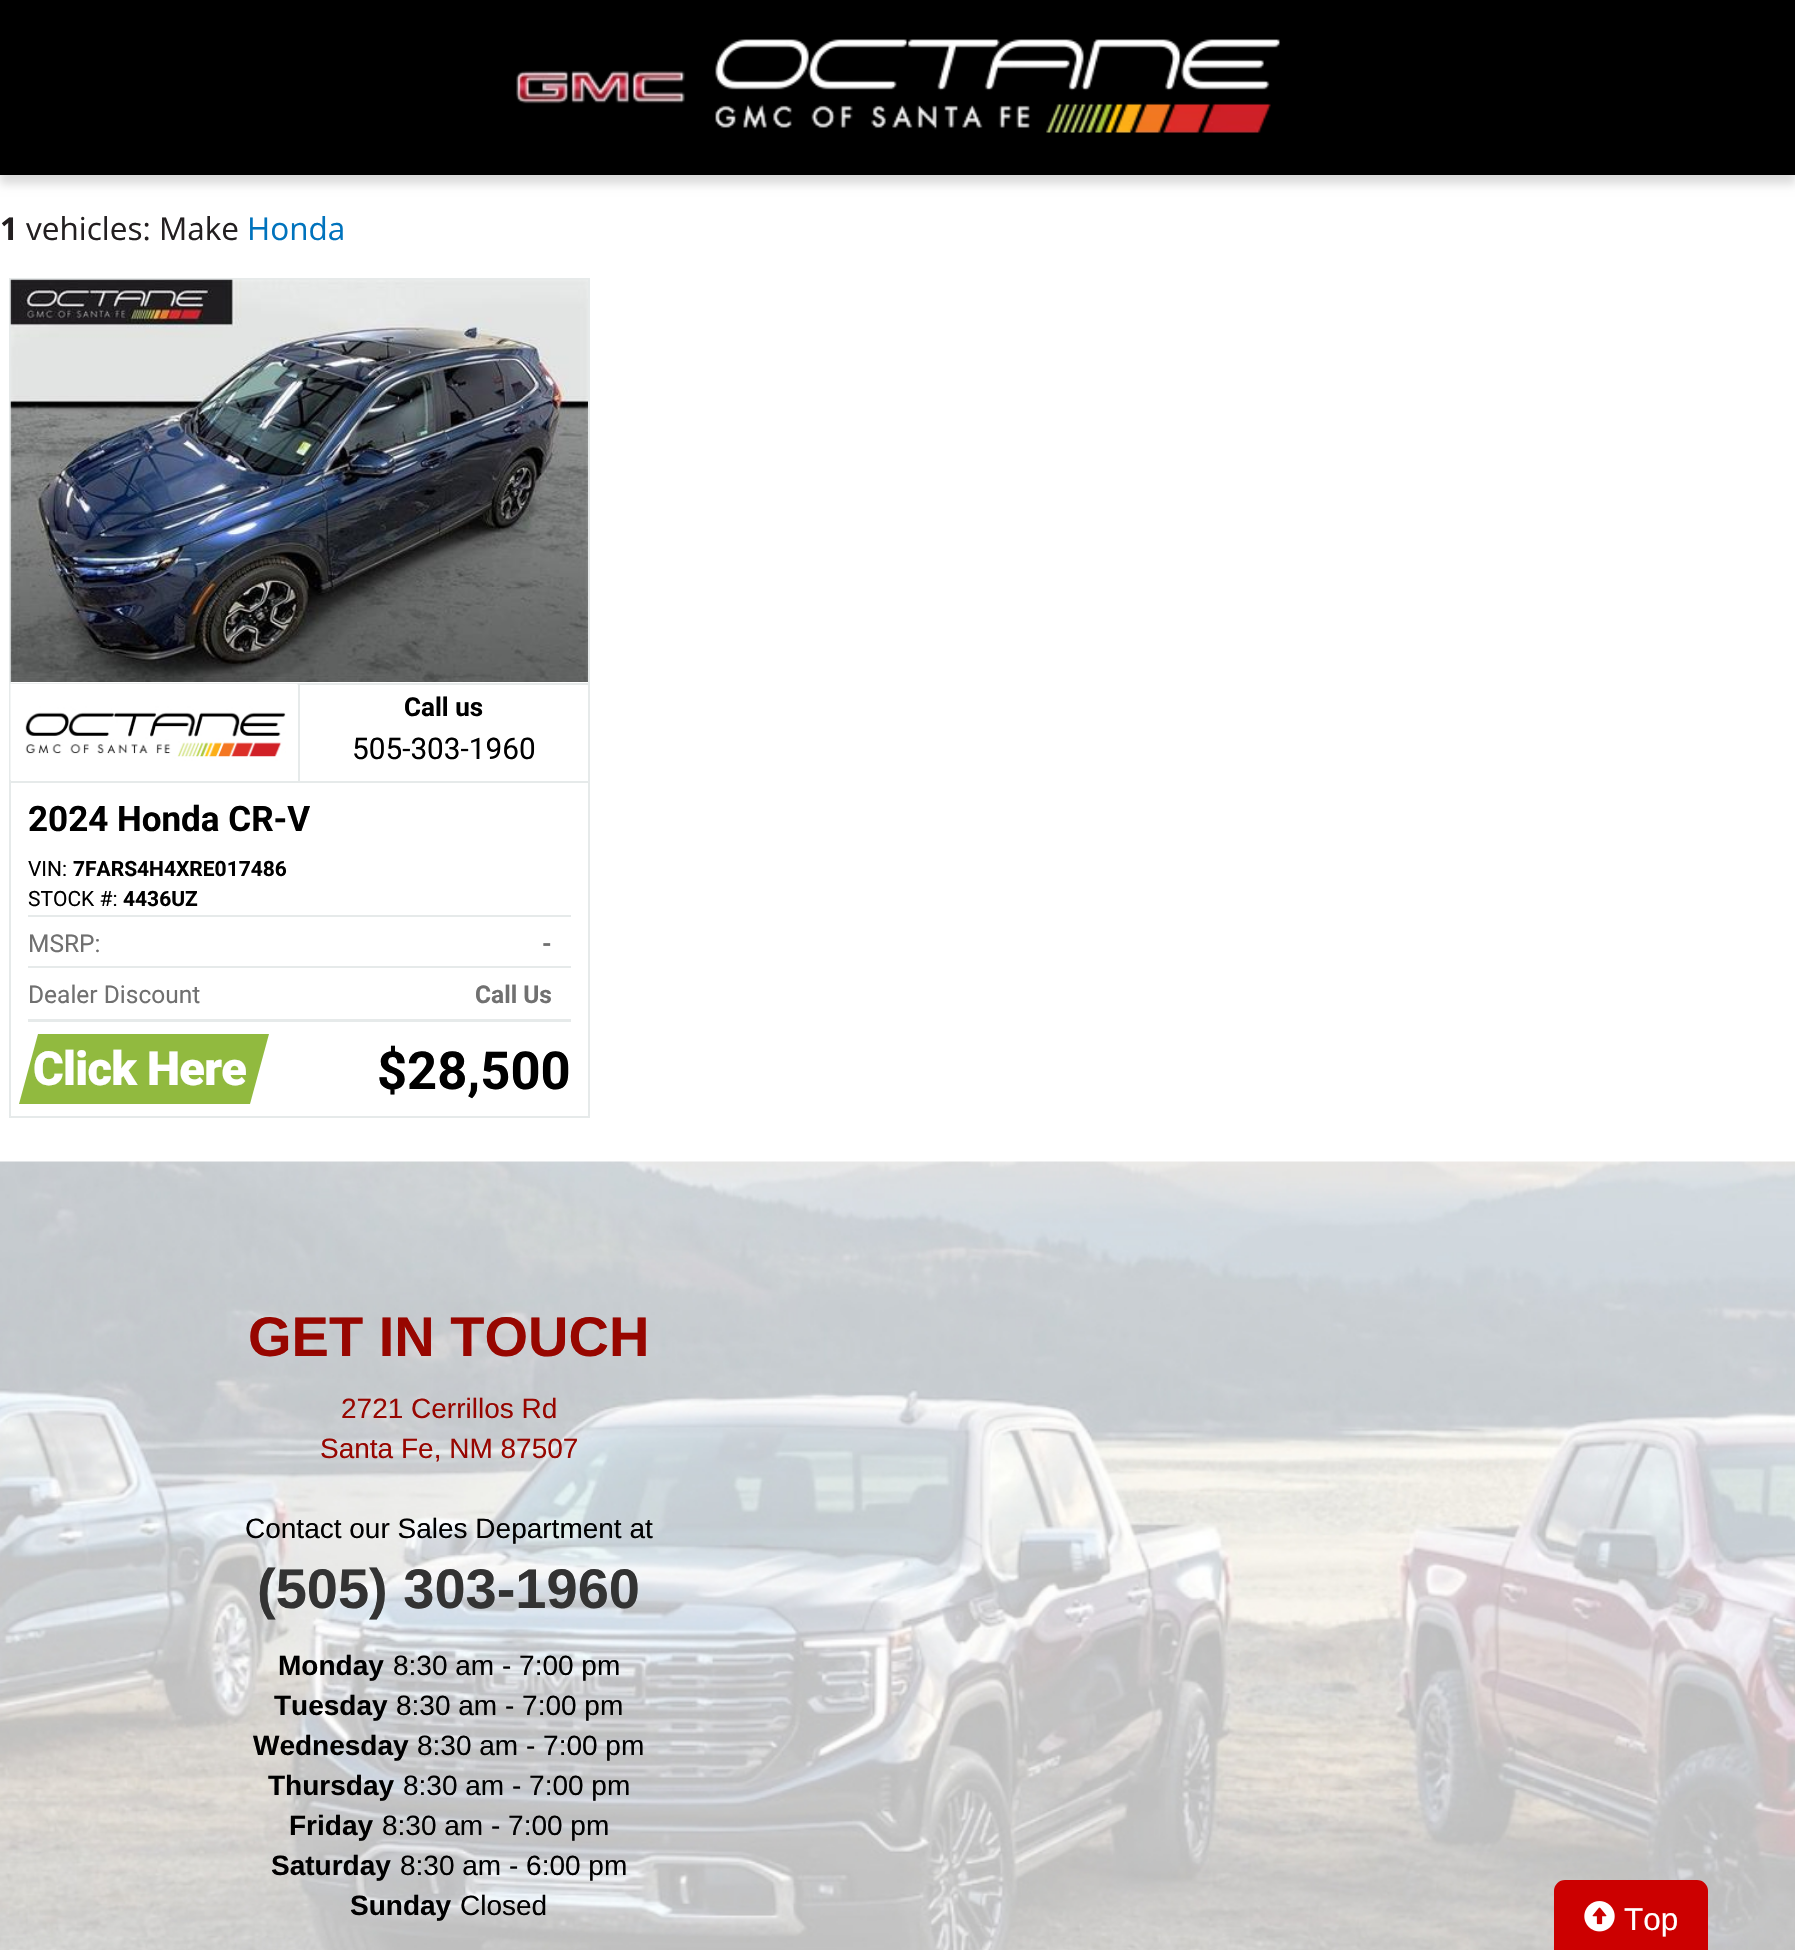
static SkFont makeFont(const char* family, int weight, float size, bool italic = false) {
  SkFontStyle style(weight, SkFontStyle::kNormal_Width,
    italic ? SkFontStyle::kItalic_Slant : SkFontStyle::kUpright_Slant);
  SkFont result(fontMgr->matchFamilyStyle(family, style), size);
  result.setSubpixel(true);
  return result;
}

static void text(SkCanvas* c, const char* s, float x, float y, const SkFont& font, SkColor color) {
  SkPaint ink(SkColor4f::FromColor(color));
  ink.setAntiAlias(true);
  c->drawString(s, x, y, font, ink);
}

static void spacedText(SkCanvas* c, const char* s, float x, float y, const SkFont& font, const SkPaint& ink, float letter, float word) {
  std::vector<SkGlyphID> glyphs(font.countText(s, strlen(s), SkTextEncoding::kUTF8));
  std::vector<float> xs(glyphs.size());
  font.textToGlyphs(s, strlen(s), SkTextEncoding::kUTF8, glyphs);
  font.getXPos(glyphs, xs, x);
  float extra = 0;
  for (size_t i = 0; i < glyphs.size(); i++) {
    xs[i] += extra;
    extra += letter + word * (glyphs[i] == font.unicharToGlyph(' '));
  }
  c->drawTextBlob(SkTextBlob::MakeFromPosHGlyphs(glyphs, xs, y, font), 0, 0, ink);
}

static void box(SkCanvas* c, float l, float t, float r, float b, SkColor color) {
  SkPaint ink(SkColor4f::FromColor(color));
  ink.setAntiAlias(true);
  c->drawRect(SkRect::MakeLTRB(l, t, r, b), ink);
}

static void picture(SkCanvas* c, const char* path, float l, float t, float r, float b) {
  auto image = SkImages::DeferredFromEncodedData(SkData::MakeFromFileName(path));
  c->drawImageRect(image, SkRect::MakeLTRB(l, t, r, b), SkSamplingOptions());
}

void draw(SkCanvas* c) {
  SkPaint paint;
  paint.setAntiAlias(true);
  c->clear(0xffffffff);
  paint.setColor(0x24000000);
  paint.setMaskFilter(SkMaskFilter::MakeBlur(kNormal_SkBlurStyle, 4.5f));
  c->drawRect(SkRect::MakeLTRB(0, 9, 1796, 184), paint);
  paint.setMaskFilter(nullptr);
  box(c, 0, 0, 1795, 175, 0xff000000);
  picture(c, "img_01.png", 516, 39, 1280, 133);
  SkFont face1 = makeFont("Open Sans", 700, 31.5f);
  text(c, "1", 0, 240, face1, 0xff231f20);
  SkFont face2 = makeFont("Open Sans", 400, 31.5f);
  text(c, "vehicles: Make", 26, 240, face2, 0xff231f20);
  text(c, "Honda", 247, 240, face2, 0xff0073bd);
  paint.setStyle(SkPaint::kStroke_Style);
  paint.setStrokeWidth(2);
  paint.setColor(0xffe6eaea);
  c->drawRect(SkRect::MakeLTRB(10, 279, 589, 1117), paint);
  picture(c, "img_02.png", 10, 279, 588, 682);
  box(c, 11, 683, 299, 685, 0xffe6eaea);
  box(c, 298, 683, 300, 782, 0xffe6eaea);
  box(c, 11, 781, 588, 783, 0xffe6eaea);
  picture(c, "img_03.png", 10, 683, 298, 780);
  box(c, 299, 683, 588, 685, 0xffe6eaea);
  SkFont face3 = makeFont("Roboto", 700, 26);
  text(c, "Call us", 404, 716, face3, 0xff000000);
  SkFont face4 = makeFont("Roboto", 400, 29.75f);
  text(c, "505-303-1960", 352, 759, face4, 0xff000000);
  SkFont face5 = makeFont("Roboto", 700, 35);
  text(c, "2024 Honda CR-V", 28, 831, face5, 0xff000000);
  SkFont face6 = makeFont("Roboto", 400, 21);
  text(c, "VIN:", 28, 876, face6, 0xff000000);
  SkFont face7 = makeFont("Roboto", 700, 21);
  text(c, "7FARS4H4XRE017486", 73, 876, face7, 0xff000000);
  text(c, "STOCK #:", 28, 906, face6, 0xff000000);
  text(c, "4436UZ", 123, 906, face7, 0xff000000);
  box(c, 28, 915, 571, 917, 0xffe6eaea);
  box(c, 28, 966, 571, 968, 0xffe6eaea);
  SkFont face8 = makeFont("Roboto", 400, 24.5f);
  text(c, "MSRP:", 28, 952, face8, 0xff707070);
  SkFont face9 = makeFont("Roboto", 700, 24.5f);
  text(c, "-", 542, 952, face9, 0xff707070);
  box(c, 28, 1019, 571, 1022, 0xffe6eaea);
  text(c, "Dealer Discount", 28, 1003, face8, 0xff707070);
  text(c, "Call Us", 475, 1003, face9, 0xff707070);
  paint.setStyle(SkPaint::kFill_Style);
  paint.setColor(0xff91ba3f);
  c->drawPath(SkPathBuilder().moveTo(38, 1034).lineTo(269, 1034).lineTo(250, 1104).lineTo(19, 1104).close().detach(), paint);
  SkFont face10 = makeFont("Roboto", 900, 47);
  paint.setColor(0xffffffff);
  spacedText(c, "Click Here", 33, 1085, face10, paint, -0.75f, 0);
  SkFont face11 = makeFont("Roboto", 700, 52.5f);
  text(c, "$28,500", 377, 1089, face11, 0xff000000);
  picture(c, "img_05.png", 0, 1161, 1795, 1950);
  paint.setColor(0xffcc0000);
  c->drawRoundRect(SkRect::MakeLTRB(1555, 1881, 1707, 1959), 10, 10, paint);
  paint.setStyle(SkPaint::kStroke_Style);
  c->drawRoundRect(SkRect::MakeLTRB(1555, 1881, 1707, 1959), 10, 10, paint);
  picture(c, "img_04.png", 1584, 1901, 1615, 1932);
  SkFont face12 = makeFont("Liberation Sans", 400, 31.5f);
  text(c, "Top", 1624, 1930, face12, 0xffffffff);
  SkFont face13 = makeFont("Liberation Sans", 700, 56);
  text(c, "GET IN TOUCH", 248, 1356, face13, 0xff970600);
  SkFont face14 = makeFont("Liberation Sans", 400, 28);
  text(c, "2721 Cerrillos Rd", 341, 1418, face14, 0xff970600);
  text(c, "Santa Fe, NM 87507", 320, 1458, face14, 0xff970600);
  text(c, "Contact our Sales Department at", 245, 1538, face14, 0xff000000);
  text(c, "(505) 303-1960", 257, 1608, face13, 0xff333333);
  SkFont face15 = makeFont("Liberation Sans", 700, 28);
  text(c, "Monday", 278, 1675, face15, 0xff000000);
  text(c, "8:30 am - 7:00 pm", 393, 1675, face14, 0xff000000);
  text(c, "Tuesday", 274, 1715, face15, 0xff000000);
  text(c, "8:30 am - 7:00 pm", 396, 1715, face14, 0xff000000);
  text(c, "Wednesday", 253, 1755, face15, 0xff000000);
  text(c, "8:30 am - 7:00 pm", 417, 1755, face14, 0xff000000);
  text(c, "Thursday", 268, 1795, face15, 0xff000000);
  text(c, "8:30 am - 7:00 pm", 403, 1795, face14, 0xff000000);
  text(c, "Friday", 289, 1835, face15, 0xff000000);
  text(c, "8:30 am - 7:00 pm", 382, 1835, face14, 0xff000000);
  text(c, "Saturday", 271, 1875, face15, 0xff000000);
  text(c, "8:30 am - 6:00 pm", 400, 1875, face14, 0xff000000);
  text(c, "Sunday", 350, 1915, face15, 0xff000000);
  text(c, "Closed", 460, 1915, face14, 0xff000000);
}
